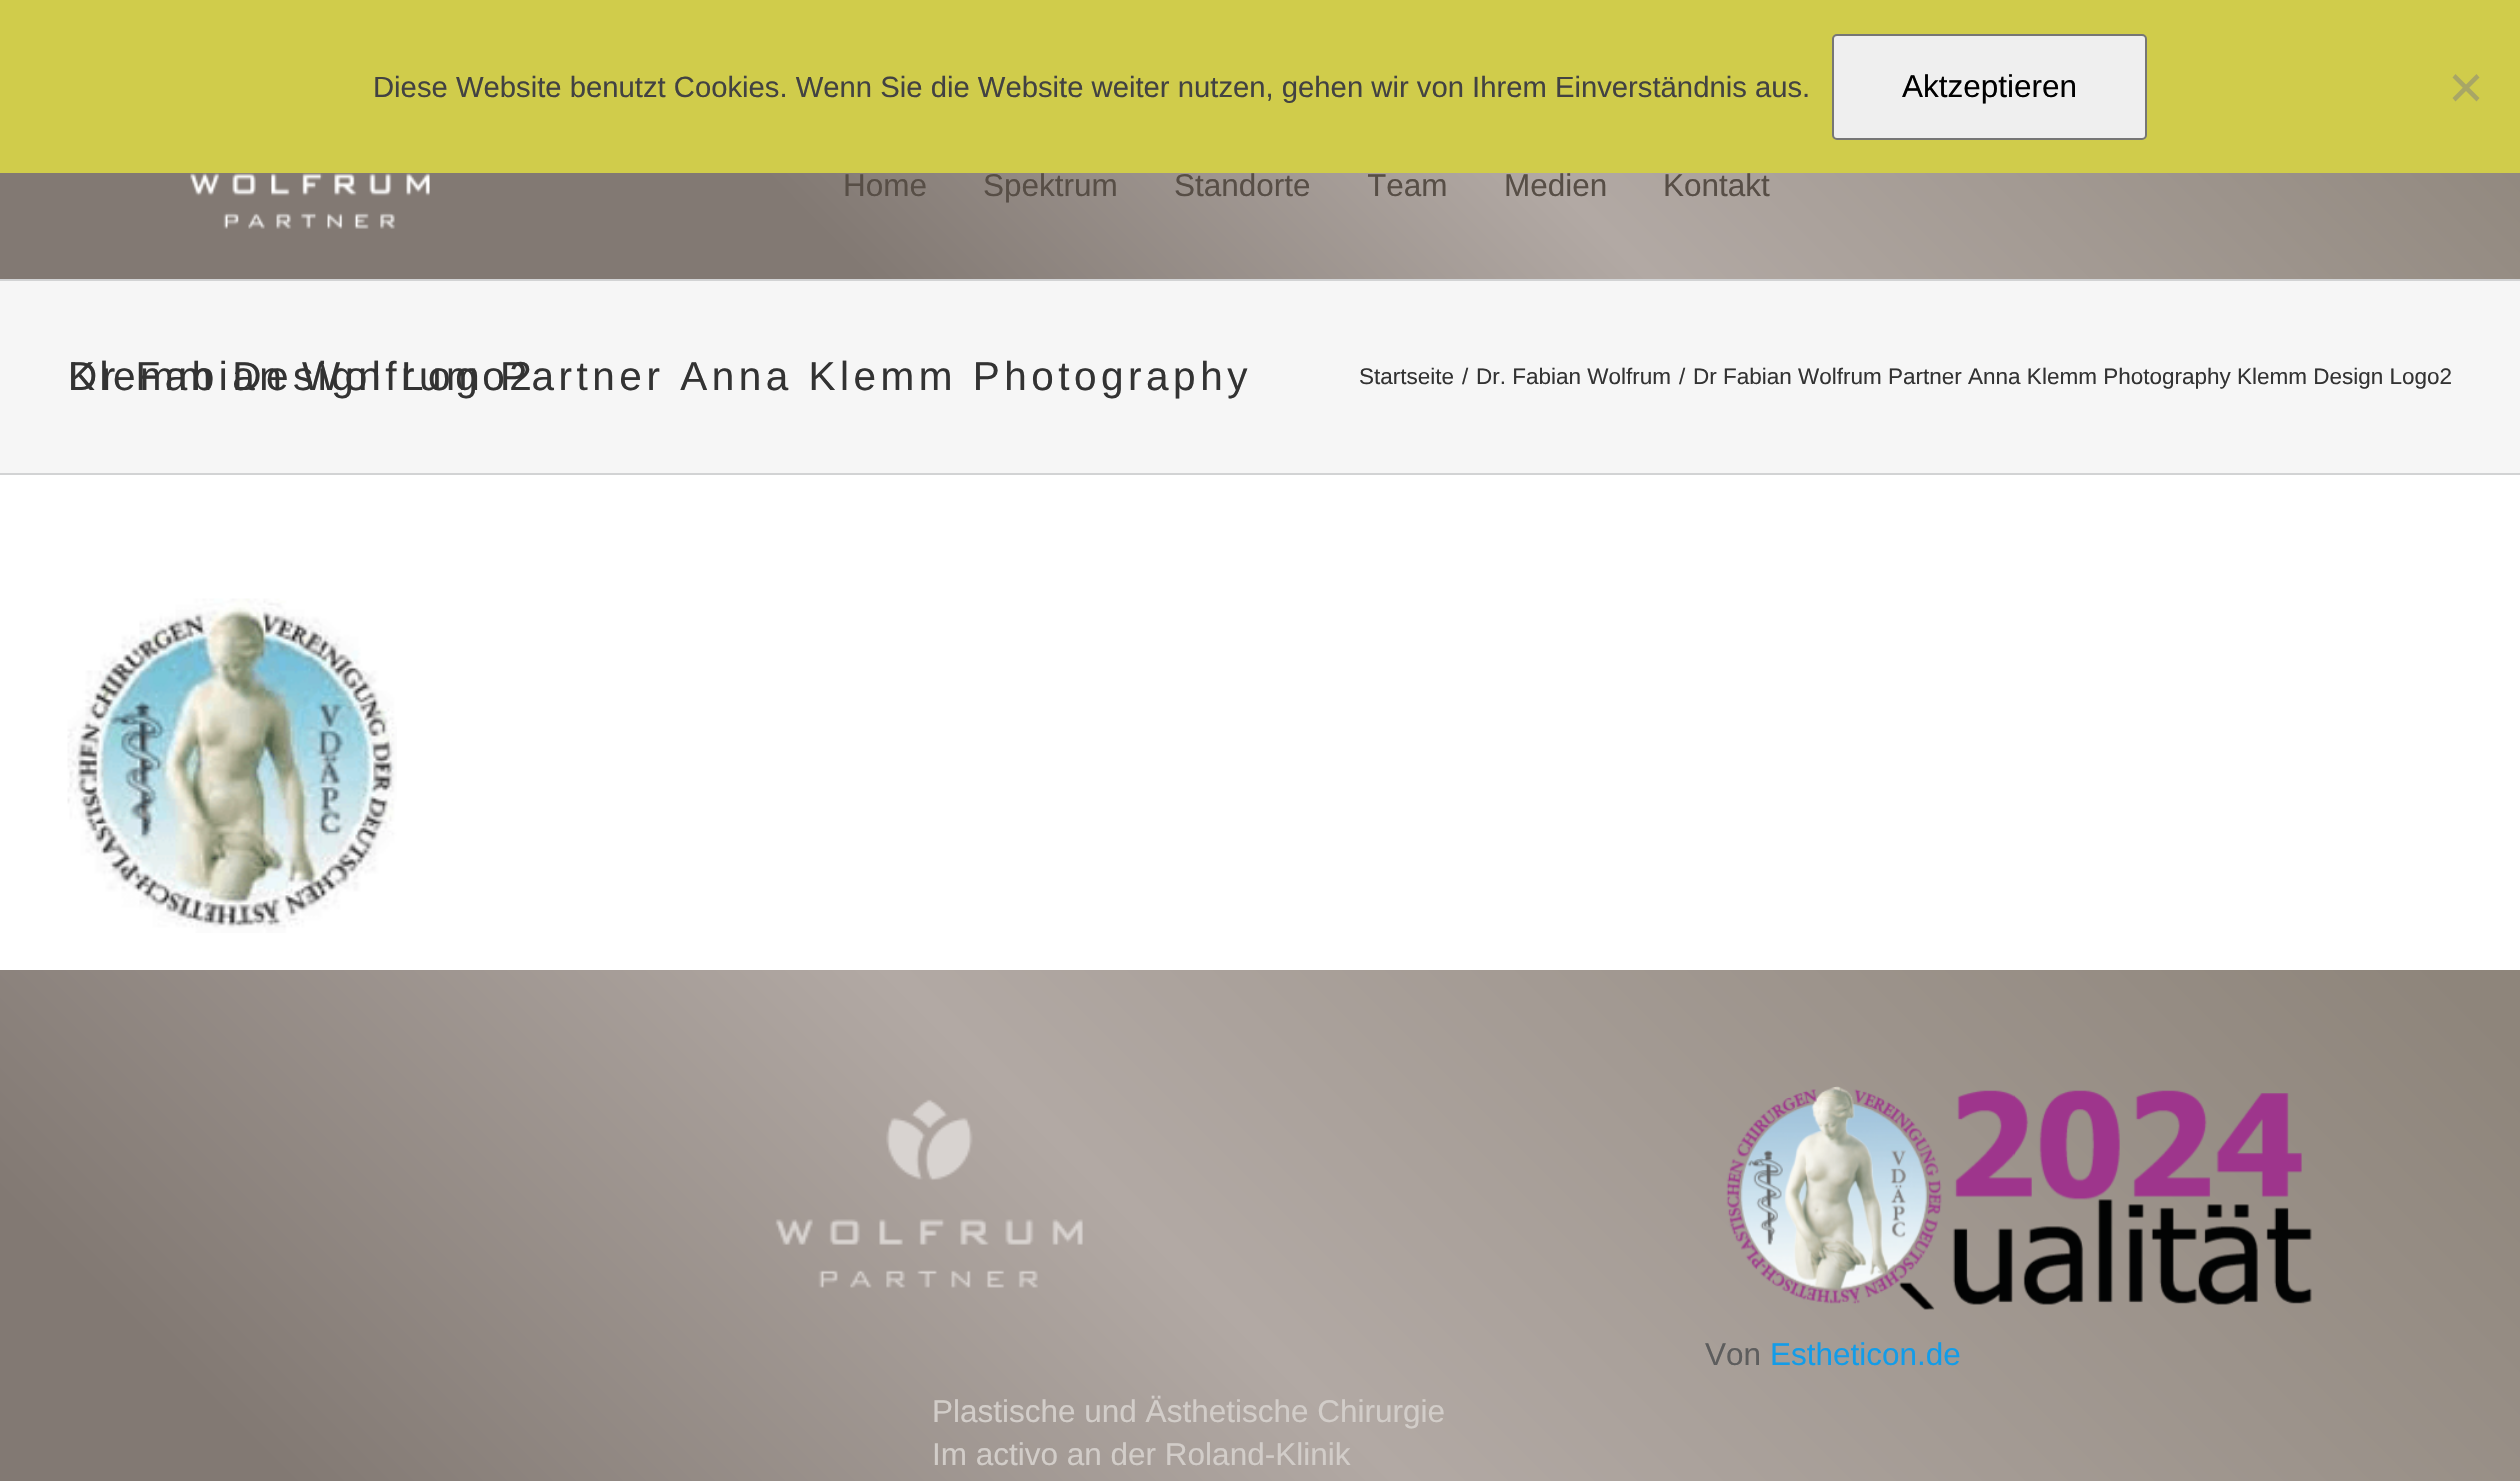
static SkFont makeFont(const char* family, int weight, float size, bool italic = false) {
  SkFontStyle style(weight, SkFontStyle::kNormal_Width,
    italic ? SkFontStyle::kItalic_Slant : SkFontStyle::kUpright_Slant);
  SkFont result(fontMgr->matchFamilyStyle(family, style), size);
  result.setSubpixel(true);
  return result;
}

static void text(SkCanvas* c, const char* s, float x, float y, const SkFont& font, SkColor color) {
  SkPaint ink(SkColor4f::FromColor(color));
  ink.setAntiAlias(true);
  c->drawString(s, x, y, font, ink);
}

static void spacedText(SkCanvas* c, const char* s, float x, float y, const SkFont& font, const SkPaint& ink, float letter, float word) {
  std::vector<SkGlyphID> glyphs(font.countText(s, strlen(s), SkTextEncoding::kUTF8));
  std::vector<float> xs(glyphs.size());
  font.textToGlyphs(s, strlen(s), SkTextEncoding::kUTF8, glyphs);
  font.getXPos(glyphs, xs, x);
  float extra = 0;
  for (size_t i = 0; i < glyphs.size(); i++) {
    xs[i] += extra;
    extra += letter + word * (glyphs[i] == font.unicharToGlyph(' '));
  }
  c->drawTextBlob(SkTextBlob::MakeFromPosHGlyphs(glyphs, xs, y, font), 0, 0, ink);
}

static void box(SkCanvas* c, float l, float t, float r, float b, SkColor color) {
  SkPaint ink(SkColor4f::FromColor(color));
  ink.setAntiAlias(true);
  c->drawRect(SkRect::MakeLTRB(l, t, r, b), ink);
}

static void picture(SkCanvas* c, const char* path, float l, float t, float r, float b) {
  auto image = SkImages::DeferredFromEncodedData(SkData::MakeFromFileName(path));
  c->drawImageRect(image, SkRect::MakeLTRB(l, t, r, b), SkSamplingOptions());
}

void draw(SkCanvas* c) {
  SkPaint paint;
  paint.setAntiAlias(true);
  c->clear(0xffffffff);
  box(c, 0, 0, 2520, 173, 0xffd0cc4b);
  SkFont face1 = makeFont("Liberation Sans", 400, 29.25f);
  text(c, "Diese Website benutzt Cookies. Wenn Sie die Website weiter nutzen, gehen wir von Ihrem Einverständnis aus.", 373, 97, face1, 0xff424242);
  paint.setColor(0xffefefef);
  c->drawRoundRect(SkRect::MakeLTRB(1833, 35, 2146, 139), 4, 4, paint);
  paint.setStyle(SkPaint::kStroke_Style);
  paint.setStrokeWidth(2);
  paint.setColor(0xff767676);
  c->drawRoundRect(SkRect::MakeLTRB(1833, 35, 2146, 139), 4, 4, paint);
  SkFont face2 = makeFont("Liberation Sans", 400, 31.5f);
  text(c, "Aktzeptieren", 1902, 97, face2, 0xff000000);
  paint.setStyle(SkPaint::kFill_Style);
  paint.setColor(0xffa8a666);
  c->drawPath(SkPathBuilder().moveTo(2476.5f, 74).lineTo(2479.5f, 77.5f).lineTo(2455.5f, 101.5f).lineTo(2452.5f, 98).close().detach(), paint);
  c->drawPath(SkPathBuilder().moveTo(2452.5f, 77.5f).lineTo(2455.5f, 74).lineTo(2479.5f, 98).lineTo(2476.5f, 101.5f).close().detach(), paint);
  {
    const SkColor colors[] = {0xff827973, 0xff827973, 0xffb2a9a4, 0xff8e857b};
    const float stops[] = {0, 0.31f, 0.59f, 0.98f};
    const SkPoint ends[] = {{560, 839}, {1960, -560}};
    paint.setShader(SkGradientShader::MakeLinear(ends, colors, stops, 4, SkTileMode::kClamp));
    paint.setAlpha(255);
  }
  c->drawRect(SkRect::MakeLTRB(0, 173, 2520, 279), paint);
  picture(c, "img_01.png", 190, 173, 430, 229);
  text(c, "Home", 843, 196, face2, 0xff574e46);
  text(c, "Spektrum", 983, 196, face2, 0xff574e46);
  text(c, "Standorte", 1174, 196, face2, 0xff574e46);
  c->save();
  c->clipRect(SkRect::MakeLTRB(1368, 90, 1503, 279));
  text(c, "Team", 1367, 196, face2, 0xff574e46);
  c->restore();
  text(c, "Medien", 1504, 196, face2, 0xff574e46);
  text(c, "Kontakt", 1663, 196, face2, 0xff574e46);
  box(c, 0, 281, 2520, 473, 0xfff6f6f6);
  box(c, 0, 279, 2520, 281, 0xffd2d3d4);
  box(c, 0, 473, 2520, 475, 0xffd2d3d4);
  SkFont face3 = makeFont("Liberation Sans", 400, 40.5f);
  paint.setShader(nullptr);
  paint.setColor(0xff333333);
  spacedText(c, "Dr Fabian Wolfrum Partner Anna Klemm Photography", 68, 390, face3, paint, 4.5f, 0);
  spacedText(c, "Klemm Design Logo2", 68, 390, face3, paint, 4.5f, 0);
  SkFont face4 = makeFont("Liberation Sans", 400, 22.5f);
  text(c, "Startseite", 1359, 384, face4, 0xff333333);
  text(c, "/", 1462, 384, face4, 0xff333333);
  text(c, "Dr. Fabian Wolfrum", 1476, 384, face4, 0xff333333);
  text(c, "/", 1679, 384, face4, 0xff333333);
  text(c, "Dr Fabian Wolfrum Partner Anna Klemm Photography Klemm Design Logo2", 1693, 384, face4, 0xff333333);
  picture(c, "img_02.png", 67, 598, 397, 933);
  {
    const SkColor colors[] = {0xff827973, 0xff827973, 0xffb2a9a4, 0xff8e857b};
    const float stops[] = {0, 0.31f, 0.59f, 0.98f};
    const SkPoint ends[] = {{266, 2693}, {2254, 704}};
    paint.setShader(SkGradientShader::MakeLinear(ends, colors, stops, 4, SkTileMode::kClamp));
    paint.setAlpha(255);
  }
  c->drawRect(SkRect::MakeLTRB(0, 970, 2520, 1481), paint);
  picture(c, "img_03.png", 1726, 1086, 2312, 1310);
  text(c, "Von", 1705, 1365, face2, 0xff5d5d5d);
  text(c, "Estheticon.de", 1770, 1365, face2, 0xff139ce8);
  picture(c, "img_04.png", 775, 1099, 1083, 1288);
  text(c, "Plastische und Ästhetische Chirurgie", 932, 1422, face2, 0xffd2cdc9);
  text(c, "Im activo an der Roland-Klinik", 932, 1465, face2, 0xffd2cdc9);
}
